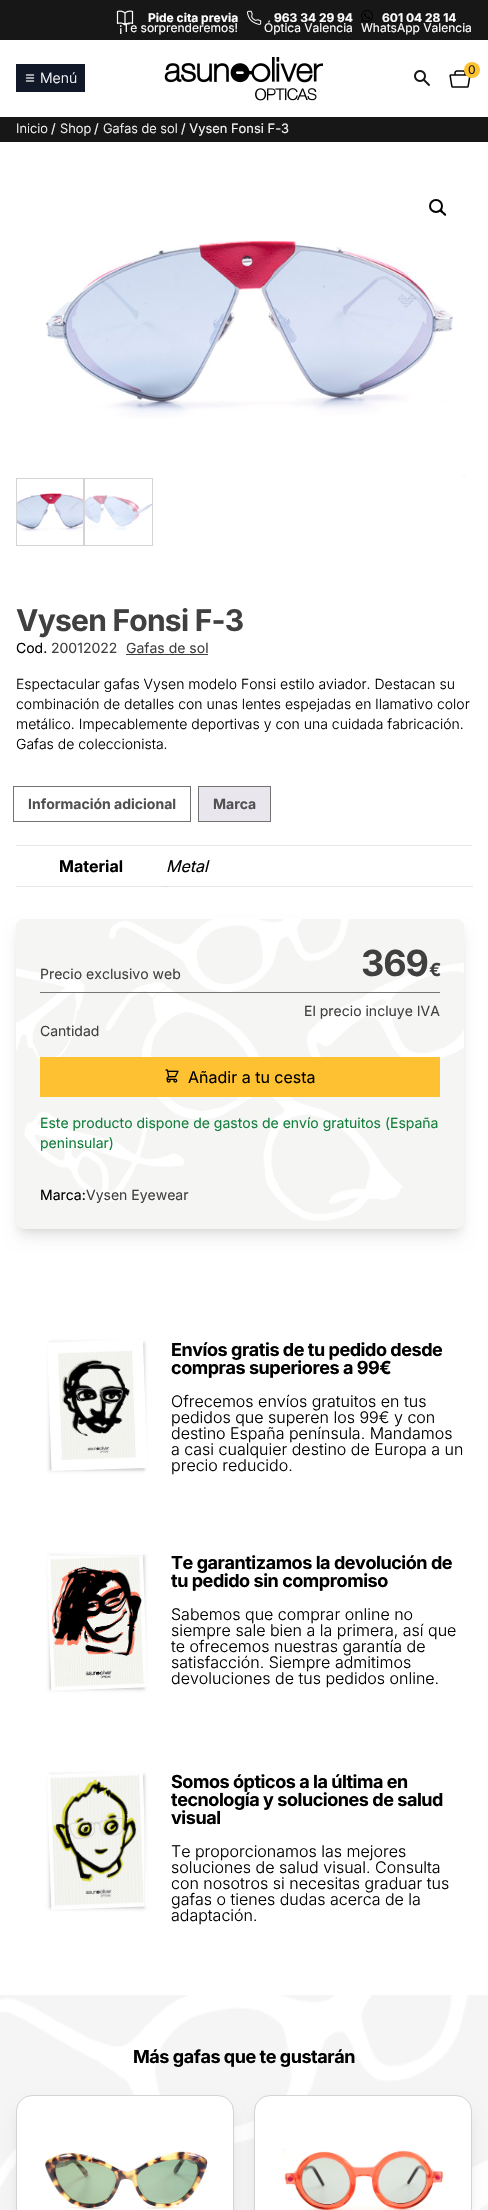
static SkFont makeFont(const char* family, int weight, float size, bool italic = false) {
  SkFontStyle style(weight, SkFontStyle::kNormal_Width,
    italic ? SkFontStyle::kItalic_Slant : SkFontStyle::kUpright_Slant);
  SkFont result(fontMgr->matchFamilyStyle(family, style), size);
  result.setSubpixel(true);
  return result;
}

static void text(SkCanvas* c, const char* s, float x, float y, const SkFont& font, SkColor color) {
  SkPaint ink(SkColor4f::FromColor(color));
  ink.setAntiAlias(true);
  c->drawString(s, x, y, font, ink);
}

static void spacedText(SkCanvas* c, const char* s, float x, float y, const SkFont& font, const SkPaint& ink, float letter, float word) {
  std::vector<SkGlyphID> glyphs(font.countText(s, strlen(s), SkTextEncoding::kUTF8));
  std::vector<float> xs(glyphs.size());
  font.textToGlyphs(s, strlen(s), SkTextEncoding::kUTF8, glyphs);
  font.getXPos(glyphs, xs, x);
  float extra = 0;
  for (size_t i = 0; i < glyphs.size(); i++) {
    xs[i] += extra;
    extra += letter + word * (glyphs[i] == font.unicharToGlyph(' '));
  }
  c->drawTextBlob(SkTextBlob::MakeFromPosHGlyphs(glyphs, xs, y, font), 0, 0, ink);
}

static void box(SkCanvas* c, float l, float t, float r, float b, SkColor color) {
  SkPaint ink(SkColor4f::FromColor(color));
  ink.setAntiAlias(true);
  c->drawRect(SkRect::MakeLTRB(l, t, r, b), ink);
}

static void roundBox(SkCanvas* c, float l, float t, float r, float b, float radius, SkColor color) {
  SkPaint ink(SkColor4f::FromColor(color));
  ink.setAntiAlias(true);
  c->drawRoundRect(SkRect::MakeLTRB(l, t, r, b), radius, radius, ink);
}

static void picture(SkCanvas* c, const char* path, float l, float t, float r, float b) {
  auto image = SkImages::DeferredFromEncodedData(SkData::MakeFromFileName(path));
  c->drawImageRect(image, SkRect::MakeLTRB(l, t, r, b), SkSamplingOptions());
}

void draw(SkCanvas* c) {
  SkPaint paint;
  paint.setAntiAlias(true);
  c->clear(0xffffffff);
  box(c, 16, 886, 473, 887, 0xffe6e6e6);
  box(c, 0, 0, 488, 40, 0xff171717);
  SkFont face1 = makeFont("Inter", 400, 12);
  text(c, "¡Te sorprenderemos!", 119, 32, face1, 0xffffffff);
  picture(c, "img_01.png", 116, 10, 134, 26);
  SkFont face2 = makeFont("Inter", 700, 12);
  text(c, "Pide cita previa", 148, 22, face2, 0xffffffff);
  picture(c, "img_02.png", 247, 10, 262, 25);
  text(c, "963 34 29 94", 274, 22, face2, 0xffffffff);
  text(c, "Óptica Valencia", 264, 32, face1, 0xffffffff);
  picture(c, "img_03.png", 361, 10, 373, 22);
  text(c, "601 04 28 14", 382, 22, face2, 0xffffffff);
  text(c, "WhatsApp Valencia", 361, 32, face1, 0xffffffff);
  picture(c, "img_04.png", 164, 57, 323, 101);
  picture(c, "img_05.png", 414, 70, 430, 86);
  picture(c, "img_06.png", 449, 70, 471, 88);
  paint.setColor(0xfffec131);
  c->drawCircle(472, 70, 8, paint);
  text(c, "0", 468, 74, face1, 0xff171717);
  box(c, 16, 64, 85, 92, 0xff111827);
  picture(c, "img_07.png", 25, 74, 35, 82);
  SkFont face3 = makeFont("Inter", 300, 14);
  text(c, "Menú", 40, 83, face3, 0xffffffff);
  box(c, 0, 117, 488, 142, 0xff171717);
  SkFont face4 = makeFont("Inter", 300, 12.9f);
  text(c, "Inicio", 16, 133, face4, 0xffffffff);
  SkFont face5 = makeFont("Inter", 400, 12.9f);
  text(c, "/", 51, 133, face5, 0xfff5f5f5);
  text(c, "Shop", 60, 133, face4, 0xffffffff);
  text(c, "/", 94, 133, face5, 0xfff5f5f5);
  text(c, "Gafas de sol", 103, 133, face4, 0xffffffff);
  text(c, "/ Vysen Fonsi F-3", 181, 133, face5, 0xfff5f5f5);
  paint.setStyle(SkPaint::kStroke_Style);
  paint.setStrokeWidth(2);
  paint.setColor(0xff000000);
  c->drawCircle(436, 206, 6, paint);
  paint.setStyle(SkPaint::kFill_Style);
  c->drawPath(SkPathBuilder().moveTo(440, 210).cubicTo(441.5f, 208.5f, 443, 211.5f, 443.5f, 212).cubicTo(444.5f, 212.5f, 447, 214.5f, 446, 215.5f).cubicTo(444.5f, 216.5f, 443, 214, 442.5f, 213.5f).cubicTo(441.5f, 213, 439, 211, 440, 210).close().detach(), paint);
  picture(c, "img_08.png", 45, 240, 465, 478);
  paint.setStyle(SkPaint::kStroke_Style);
  paint.setStrokeWidth(1);
  paint.setColor(0xffd4d4d4);
  c->drawRect(SkRect::MakeLTRB(16.5f, 478.5f, 83.5f, 545.5f), paint);
  picture(c, "img_09.png", 17, 493, 83, 532);
  c->drawRect(SkRect::MakeLTRB(84.5f, 478.5f, 152.5f, 545.5f), paint);
  picture(c, "img_10.png", 85, 495, 152, 531);
  SkFont face6 = makeFont("Inter", 700, 30);
  paint.setStyle(SkPaint::kFill_Style);
  paint.setColor(0xff404040);
  spacedText(c, "Vysen Fonsi F-3", 16, 631, face6, paint, -0.75f, 0);
  SkFont face7 = makeFont("Inter", 400, 14);
  text(c, "Cod.", 16, 653, face7, 0xff000000);
  text(c, "20012022", 51, 653, face7, 0xff404040);
  text(c, "Gafas de sol", 126, 653, face7, 0xff404040);
  box(c, 126, 654, 208, 655, 0xff404040);
  text(c, "Espectacular gafas Vysen modelo Fonsi estilo aviador. Destacan su", 16, 689, face3, 0xff000000);
  text(c, "combinación de detalles con unas lentes espejadas en llamativo color", 16, 709, face3, 0xff000000);
  text(c, "metálico. Impecablemente deportivas y con una cuidada fabricación.", 16, 729, face3, 0xff000000);
  text(c, "Gafas de coleccionista.", 16, 749, face3, 0xff000000);
  paint.setStyle(SkPaint::kStroke_Style);
  paint.setColor(0xff737373);
  c->drawRect(SkRect::MakeLTRB(13.5f, 786.5f, 190.5f, 821.5f), paint);
  SkFont face8 = makeFont("Inter", 700, 14);
  text(c, "Información adicional", 28, 809, face8, 0xff515151);
  paint.setStyle(SkPaint::kFill_Style);
  paint.setColor(0xffe9e6ed);
  c->drawRect(SkRect::MakeLTRB(198.5f, 786.5f, 270.5f, 821.5f), paint);
  paint.setStyle(SkPaint::kStroke_Style);
  paint.setColor(0xff737373);
  c->drawRect(SkRect::MakeLTRB(198.5f, 786.5f, 270.5f, 821.5f), paint);
  text(c, "Marca", 213, 809, face8, 0xff515151);
  box(c, 16, 845, 472, 846, 0xffe6e6e6);
  SkFont face9 = makeFont("Inter", 700, 16);
  text(c, "Material", 59, 872, face9, 0xff000000);
  box(c, 166, 886, 167, 887, 0xffcfcfcf);
  SkFont face10 = makeFont("Inter", 400, 16, true);
  text(c, "Metal", 166, 872, face10, 0xff000000);
  paint.setStyle(SkPaint::kFill_Style);
  paint.setColor(0x1a000000);
  paint.setMaskFilter(SkMaskFilter::MakeBlur(kNormal_SkBlurStyle, 3));
  c->drawRoundRect(SkRect::MakeLTRB(20, 927, 460, 1229), 4, 4, paint);
  paint.setMaskFilter(nullptr);
  paint.setMaskFilter(SkMaskFilter::MakeBlur(kNormal_SkBlurStyle, 7.5f));
  c->drawRoundRect(SkRect::MakeLTRB(19, 932, 461, 1236), 5, 5, paint);
  paint.setMaskFilter(nullptr);
  roundBox(c, 16, 919, 464, 1229, 8, 0xfff5f5f4);
  picture(c, "img_11.png", 16, 919, 464, 1221);
  box(c, 40, 992, 440, 993, 0xff737373);
  text(c, "Precio exclusivo web", 40, 979, face7, 0xff404040);
  SkFont face11 = makeFont("Inter", 700, 36);
  paint.setColor(0xff404040);
  spacedText(c, "369", 361, 976, face11, paint, -1, 0);
  SkFont face12 = makeFont("Inter", 700, 18);
  spacedText(c, "€", 429, 976, face12, paint, -1, 0);
  text(c, "El precio incluye IVA", 304, 1016, face7, 0xff404040);
  text(c, "Cantidad", 40, 1036, face7, 0xff404040);
  box(c, 40, 1057, 440, 1097, 0xfffec131);
  picture(c, "img_12.png", 165, 1069, 179, 1083);
  SkFont face13 = makeFont("Inter", 400, 16);
  text(c, "Añadir a tu cesta", 188, 1083, face13, 0xff000000);
  text(c, "Este producto dispone de gastos de envío gratuitos (España", 40, 1128, face7, 0xff15803d);
  text(c, "peninsular)", 40, 1148, face7, 0xff15803d);
  text(c, "Marca:", 40, 1200, face7, 0xff000000);
  text(c, "Vysen Eyewear", 86, 1200, face7, 0xff404040);
  c->save();
  c->clipPath(SkPathBuilder(SkPathFillType::kEvenOdd).moveTo(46, 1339).lineTo(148, 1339).lineTo(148, 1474).lineTo(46, 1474).close().moveTo(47, 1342.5f).lineTo(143, 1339).lineTo(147.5f, 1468).lineTo(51.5f, 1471).close().detach(), true);
  paint.setColor(0x1a000000);
  paint.setMaskFilter(SkMaskFilter::MakeBlur(kNormal_SkBlurStyle, 1));
  c->drawRect(SkRect::MakeLTRB(50, 1343, 144, 1470), paint);
  paint.setMaskFilter(nullptr);
  c->restore();
  c->save();
  c->clipPath(SkPathBuilder(SkPathFillType::kEvenOdd).moveTo(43, 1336).lineTo(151, 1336).lineTo(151, 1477).lineTo(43, 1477).close().moveTo(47, 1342.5f).lineTo(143, 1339).lineTo(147.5f, 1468).lineTo(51.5f, 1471).close().detach(), true);
  paint.setMaskFilter(SkMaskFilter::MakeBlur(kNormal_SkBlurStyle, 1.5f));
  c->drawRect(SkRect::MakeLTRB(49, 1342, 145, 1471), paint);
  paint.setMaskFilter(nullptr);
  c->restore();
  picture(c, "img_13.png", 58, 1350, 136, 1460);
  paint.setColor(0xff000000);
  spacedText(c, "Envíos gratis de tu pedido desde", 171, 1356, face12, paint, -0.45f, 0);
  spacedText(c, "compras superiores a 99€", 171, 1374, face12, paint, -0.45f, 0);
  SkFont face14 = makeFont("Inter", 300, 16);
  text(c, "Ofrecemos envíos gratuitos en tus", 171, 1407, face14, 0xff000000);
  text(c, "pedidos que superen los 99€ y con", 171, 1423, face14, 0xff000000);
  text(c, "destino España península. Mandamos", 171, 1439, face14, 0xff000000);
  text(c, "a casi cualquier destino de Europa a un", 171, 1455, face14, 0xff000000);
  text(c, "precio reducido.", 171, 1471, face14, 0xff000000);
  paint.setColor(0x1a000000);
  paint.setMaskFilter(SkMaskFilter::MakeBlur(kNormal_SkBlurStyle, 1));
  c->drawRect(SkRect::MakeLTRB(50, 1556, 144, 1689), paint);
  paint.setMaskFilter(nullptr);
  c->save();
  c->clipPath(SkPathBuilder(SkPathFillType::kEvenOdd).moveTo(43, 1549).lineTo(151, 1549).lineTo(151, 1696).lineTo(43, 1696).close().moveTo(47, 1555).lineTo(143, 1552).lineTo(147.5f, 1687).lineTo(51.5f, 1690.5f).close().detach(), true);
  paint.setMaskFilter(SkMaskFilter::MakeBlur(kNormal_SkBlurStyle, 1.5f));
  c->drawRect(SkRect::MakeLTRB(49, 1555, 145, 1690), paint);
  paint.setMaskFilter(nullptr);
  c->restore();
  picture(c, "img_14.png", 48, 1556, 145, 1691);
  paint.setColor(0xff000000);
  spacedText(c, "Te garantizamos la devolución de", 171, 1569, face12, paint, -0.45f, 0);
  spacedText(c, "tu pedido sin compromiso", 171, 1587, face12, paint, -0.45f, 0);
  text(c, "Sabemos que comprar online no", 171, 1620, face14, 0xff000000);
  text(c, "siempre sale bien a la primera, así que", 171, 1636, face14, 0xff000000);
  text(c, "te ofrecemos nuestras garantía de", 171, 1652, face14, 0xff000000);
  text(c, "satisfacción. Siempre admitimos", 171, 1668, face14, 0xff000000);
  text(c, "devoluciones de tus pedidos online.", 171, 1684, face14, 0xff000000);
  paint.setColor(0x1a000000);
  paint.setMaskFilter(SkMaskFilter::MakeBlur(kNormal_SkBlurStyle, 1));
  c->drawRect(SkRect::MakeLTRB(50, 1775, 144, 1908), paint);
  paint.setMaskFilter(nullptr);
  c->save();
  c->clipPath(SkPathBuilder(SkPathFillType::kEvenOdd).moveTo(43, 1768).lineTo(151, 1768).lineTo(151, 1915).lineTo(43, 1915).close().moveTo(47, 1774.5f).lineTo(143, 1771).lineTo(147.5f, 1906.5f).lineTo(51.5f, 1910).close().detach(), true);
  paint.setMaskFilter(SkMaskFilter::MakeBlur(kNormal_SkBlurStyle, 1.5f));
  c->drawRect(SkRect::MakeLTRB(49, 1774, 145, 1909), paint);
  paint.setMaskFilter(nullptr);
  c->restore();
  picture(c, "img_15.png", 48, 1774, 144, 1909);
  paint.setColor(0xff000000);
  spacedText(c, "Somos ópticos a la última en", 171, 1788, face12, paint, -0.45f, 0);
  spacedText(c, "tecnología y soluciones de salud", 171, 1806, face12, paint, -0.45f, 0);
  spacedText(c, "visual", 171, 1824, face12, paint, -0.45f, 0);
  text(c, "Te proporcionamos las mejores", 171, 1857, face14, 0xff000000);
  text(c, "soluciones de salud visual. Consulta", 171, 1873, face14, 0xff000000);
  text(c, "con nosotros si necesitas graduar tus", 171, 1889, face14, 0xff000000);
  text(c, "gafas o tienes dudas acerca de la", 171, 1905, face14, 0xff000000);
  text(c, "adaptación.", 171, 1921, face14, 0xff000000);
  box(c, 0, 1995, 488, 2210, 0xfff5f5f5);
  picture(c, "img_16.png", 0, 1995, 488, 2210);
  spacedText(c, "Más gafas que te gustarán", 133, 2063, face12, paint, -0.45f, 0);
  paint.setColor(0x1a000000);
  paint.setMaskFilter(SkMaskFilter::MakeBlur(kNormal_SkBlurStyle, 7.5f));
  c->drawRoundRect(SkRect::MakeLTRB(19, 2108, 231, 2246), 13, 13, paint);
  paint.setMaskFilter(nullptr);
  paint.setColor(0xffffffff);
  c->drawRoundRect(SkRect::MakeLTRB(16.5f, 2095.5f, 233.5f, 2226.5f), 15.5f, 15.5f, paint);
  paint.setStyle(SkPaint::kStroke_Style);
  paint.setColor(0xffd6d3d1);
  c->drawRoundRect(SkRect::MakeLTRB(16.5f, 2095.5f, 233.5f, 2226.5f), 15.5f, 15.5f, paint);
  picture(c, "img_17.png", 45, 2151, 208, 2210);
  paint.setStyle(SkPaint::kFill_Style);
  paint.setColor(0x1a000000);
  paint.setMaskFilter(SkMaskFilter::MakeBlur(kNormal_SkBlurStyle, 7.5f));
  c->drawRoundRect(SkRect::MakeLTRB(257, 2108, 469, 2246), 13, 13, paint);
  paint.setMaskFilter(nullptr);
  paint.setColor(0xffffffff);
  c->drawRoundRect(SkRect::MakeLTRB(254.5f, 2095.5f, 471.5f, 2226.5f), 15.5f, 15.5f, paint);
  paint.setStyle(SkPaint::kStroke_Style);
  paint.setColor(0xffd6d3d1);
  c->drawRoundRect(SkRect::MakeLTRB(254.5f, 2095.5f, 471.5f, 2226.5f), 15.5f, 15.5f, paint);
  picture(c, "img_18.png", 271, 2136, 444, 2210);
}
